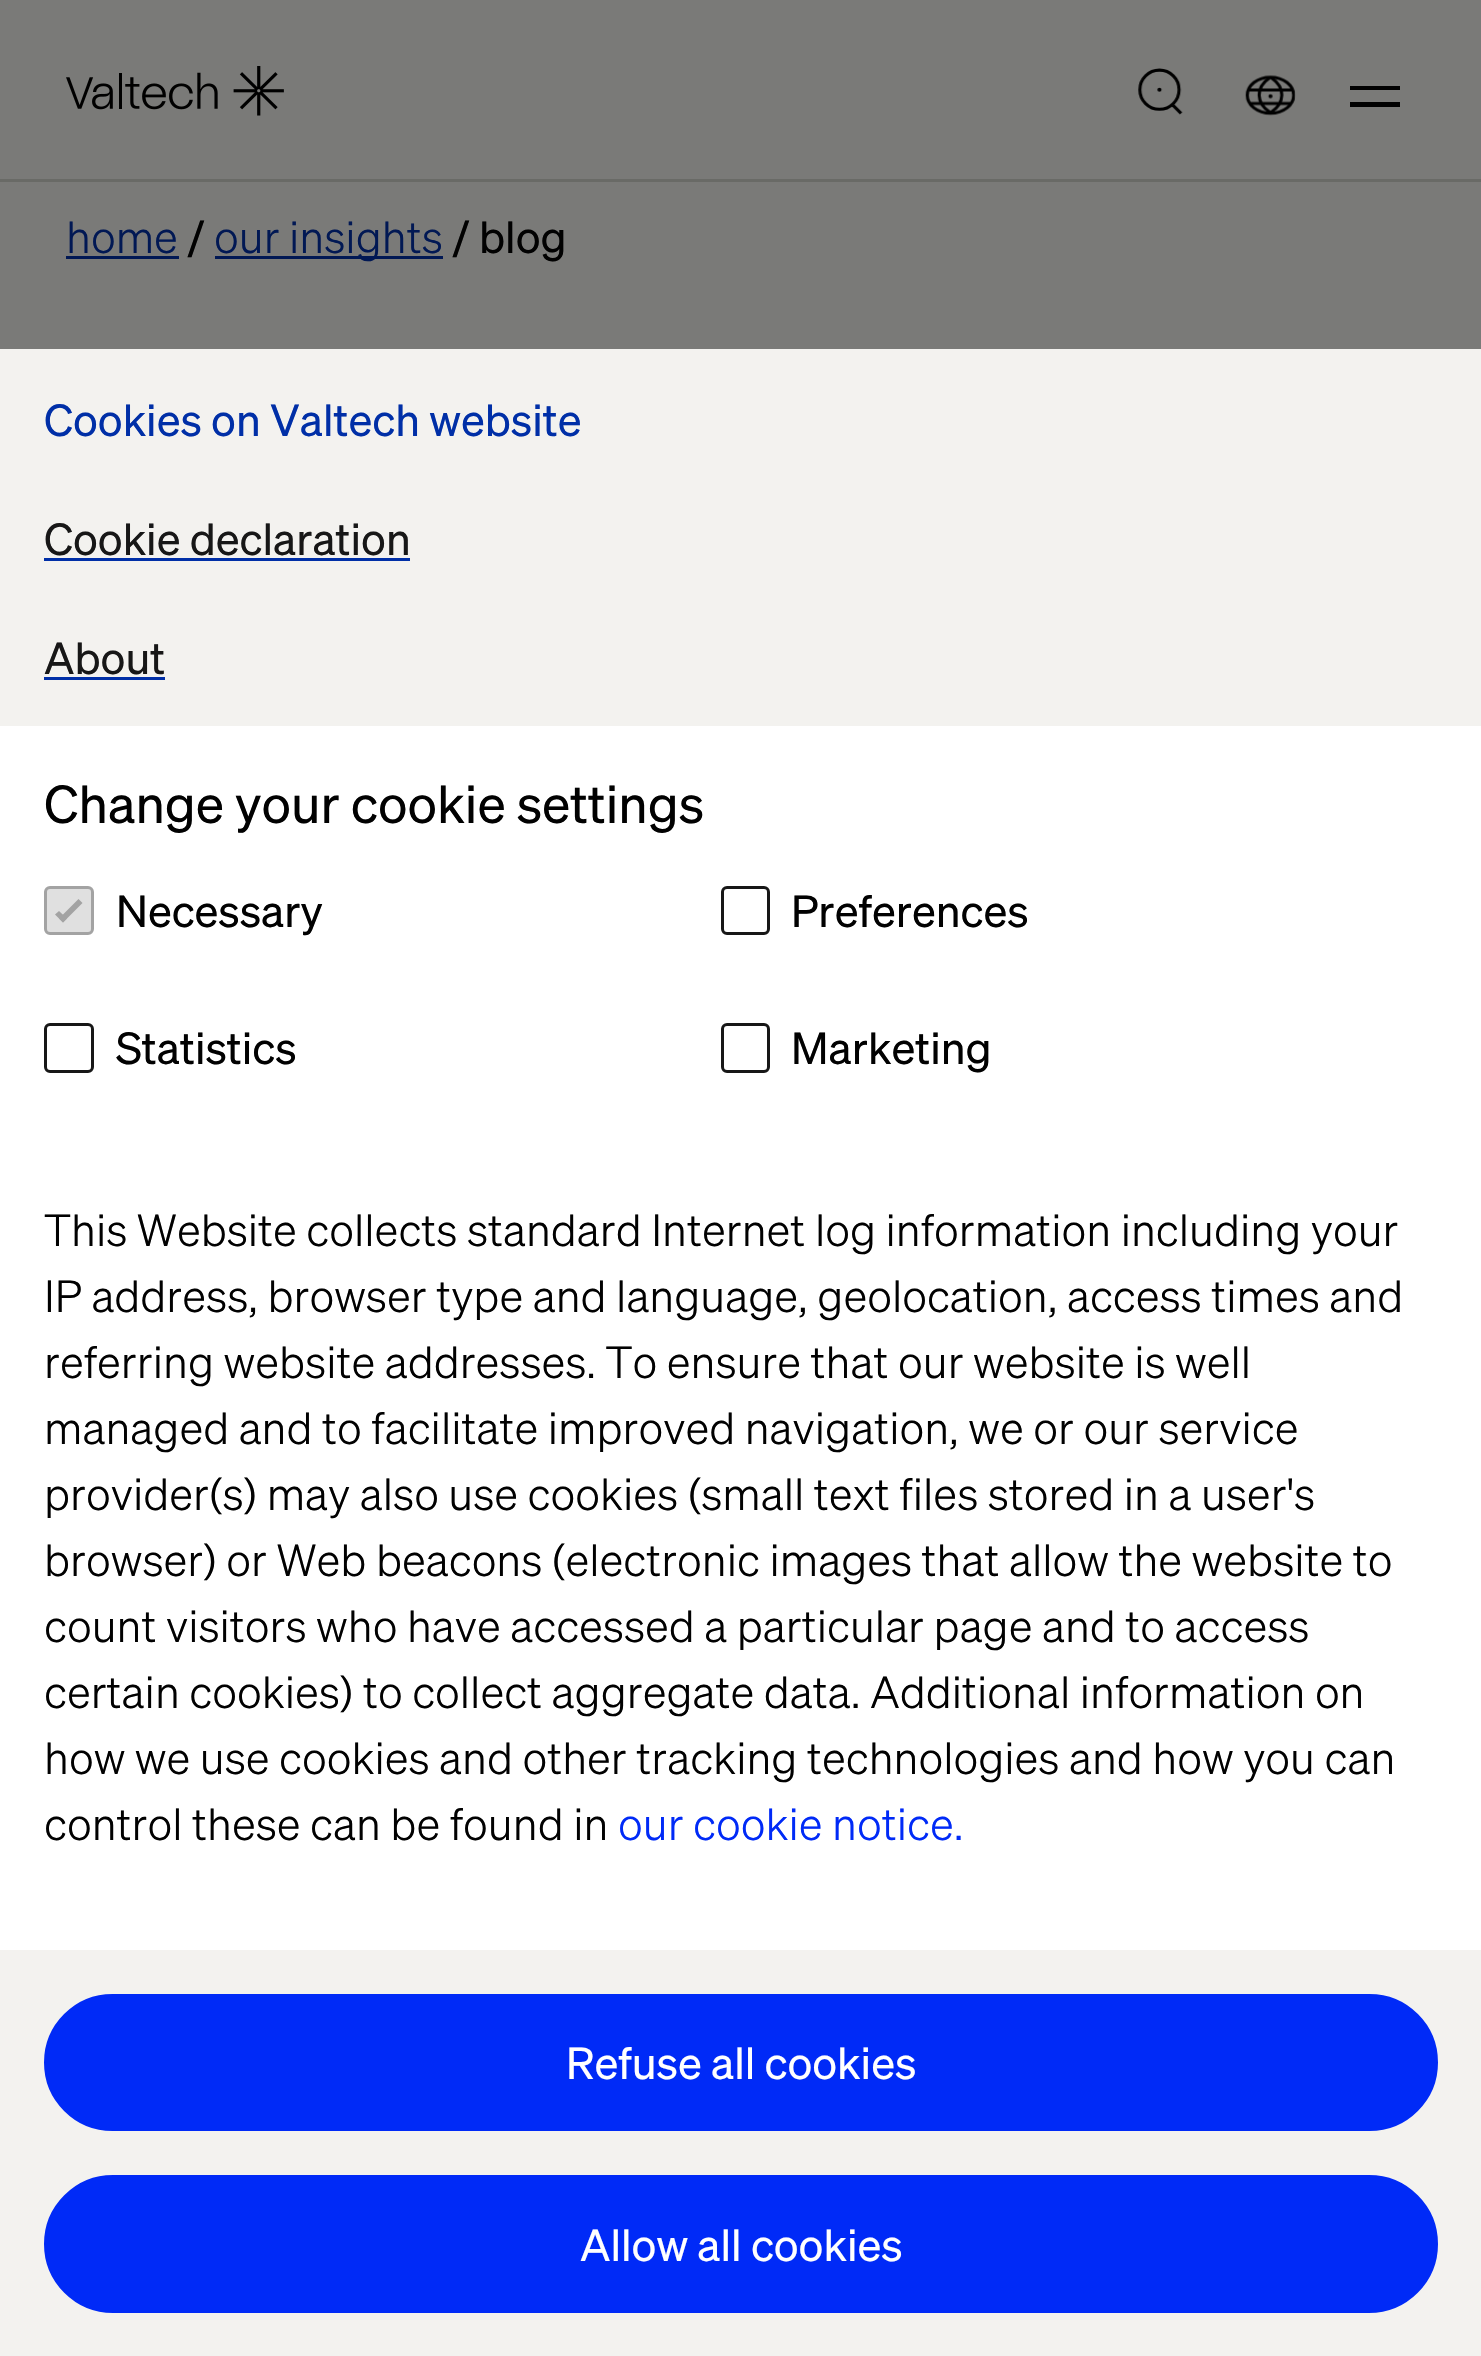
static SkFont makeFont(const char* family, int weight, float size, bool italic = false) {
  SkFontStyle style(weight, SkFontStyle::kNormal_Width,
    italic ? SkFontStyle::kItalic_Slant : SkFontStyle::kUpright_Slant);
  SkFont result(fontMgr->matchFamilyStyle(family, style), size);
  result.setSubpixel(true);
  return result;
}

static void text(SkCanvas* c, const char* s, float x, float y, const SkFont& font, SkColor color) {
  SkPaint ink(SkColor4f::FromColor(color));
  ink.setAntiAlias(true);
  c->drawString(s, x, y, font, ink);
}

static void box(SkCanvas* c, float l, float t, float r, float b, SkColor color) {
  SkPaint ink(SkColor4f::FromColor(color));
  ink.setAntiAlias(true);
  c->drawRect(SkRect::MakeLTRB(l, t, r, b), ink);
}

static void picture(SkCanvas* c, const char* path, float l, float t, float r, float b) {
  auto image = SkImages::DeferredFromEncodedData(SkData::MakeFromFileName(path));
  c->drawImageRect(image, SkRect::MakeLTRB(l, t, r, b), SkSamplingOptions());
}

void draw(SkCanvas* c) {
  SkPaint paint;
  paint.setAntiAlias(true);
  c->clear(0xff7a7a78);
  picture(c, "img_01.png", 66, 66, 284, 116);
  picture(c, "img_02.png", 1138, 68, 1183, 115);
  picture(c, "img_03.png", 1245, 75, 1296, 116);
  box(c, 1350, 86, 1400, 90, 0xff010101);
  box(c, 1350, 102, 1400, 107, 0xff010101);
  box(c, 0, 179, 1481, 182, 0xff696a66);
  SkFont face1 = makeFont("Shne", 300, 44);
  text(c, "home", 66, 253, face1, 0xff011854);
  box(c, 66, 256, 179, 259, 0xff011854);
  SkFont face2 = makeFont("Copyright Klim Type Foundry", 400, 44);
  text(c, "/", 187, 253, face2, 0xff010101);
  box(c, 215, 256, 443, 259, 0xff011854);
  text(c, "our insights", 214, 253, face1, 0xff011854);
  text(c, "/ blog", 452, 253, face2, 0xff010101);
  box(c, 0, 726, 1481, 1950, 0xffffffff);
  box(c, 0, 349, 1481, 726, 0xfff3f2ef);
  text(c, "Cookies on Valtech website", 44, 436, face2, 0xff002fa7);
  text(c, "Cookie declaration", 44, 555, face2, 0xff171717);
  box(c, 44, 558, 410, 561, 0xff002fa7);
  text(c, "About", 44, 674, face2, 0xff171717);
  box(c, 44, 677, 165, 680, 0xff002fa7);
  SkFont face3 = makeFont("Copyright Klim Type Foundry", 400, 52.25f);
  text(c, "Change your cookie settings", 44, 823, face3, 0xff010101);
  paint.setColor(0xffe0e0e0);
  c->drawRoundRect(SkRect::MakeLTRB(45.5f, 887.5f, 92.5f, 933.5f), 4.5f, 4.5f, paint);
  paint.setStyle(SkPaint::kStroke_Style);
  paint.setStrokeWidth(3);
  paint.setColor(0xffa3a3a3);
  c->drawRoundRect(SkRect::MakeLTRB(45.5f, 887.5f, 92.5f, 933.5f), 4.5f, 4.5f, paint);
  paint.setStyle(SkPaint::kFill_Style);
  c->drawPath(SkPathBuilder().moveTo(78.5f, 899).lineTo(82.5f, 903).lineTo(63, 922.5f).lineTo(59, 918.5f).close().detach(), paint);
  c->drawPath(SkPathBuilder().moveTo(59, 911).lineTo(67, 918.5f).lineTo(63, 922.5f).lineTo(55, 914.5f).close().detach(), paint);
  text(c, "Necessary", 116, 927, face2, 0xff010101);
  paint.setStyle(SkPaint::kStroke_Style);
  paint.setColor(0xff171717);
  c->drawRoundRect(SkRect::MakeLTRB(722.5f, 887.5f, 768.5f, 933.5f), 4.5f, 4.5f, paint);
  text(c, "Preferences", 791, 927, face2, 0xff010101);
  c->drawRoundRect(SkRect::MakeLTRB(45.5f, 1024.5f, 92.5f, 1071.5f), 4.5f, 4.5f, paint);
  text(c, "Statistics", 116, 1064, face2, 0xff010101);
  c->drawRoundRect(SkRect::MakeLTRB(722.5f, 1024.5f, 768.5f, 1071.5f), 4.5f, 4.5f, paint);
  text(c, "Marketing", 791, 1064, face2, 0xff010101);
  text(c, "This Website collects standard Internet log information including your", 44, 1246, face1, 0xff010101);
  text(c, "IP address, browser type and language, geolocation, access times and", 44, 1312, face1, 0xff010101);
  text(c, "referring website addresses. To ensure that our website is well", 44, 1378, face1, 0xff010101);
  text(c, "managed and to facilitate improved navigation, we or our service", 44, 1444, face1, 0xff010101);
  text(c, "provider(s) may also use cookies (small text files stored in a user's", 44, 1510, face1, 0xff010101);
  text(c, "browser) or Web beacons (electronic images that allow the website to", 44, 1576, face1, 0xff010101);
  text(c, "count visitors who have accessed a particular page and to access", 44, 1642, face1, 0xff010101);
  text(c, "certain cookies) to collect aggregate data. Additional information on", 44, 1708, face1, 0xff010101);
  text(c, "how we use cookies and other tracking technologies and how you can", 44, 1774, face1, 0xff010101);
  text(c, "control these can be found in", 44, 1840, face1, 0xff010101);
  text(c, "our cookie notice.", 618, 1840, face1, 0xff002af7);
  box(c, 0, 1950, 1481, 2356, 0xfff3f2ef);
  paint.setStyle(SkPaint::kFill_Style);
  paint.setColor(0xff002af7);
  c->drawRoundRect(SkRect::MakeLTRB(47, 1997, 1435, 2128), 65.5f, 65.5f, paint);
  paint.setStyle(SkPaint::kStroke_Style);
  paint.setStrokeWidth(6);
  c->drawRoundRect(SkRect::MakeLTRB(47, 1997, 1435, 2128), 65.5f, 65.5f, paint);
  text(c, "Refuse all cookies", 566, 2079, face2, 0xffffffff);
  paint.setStyle(SkPaint::kFill_Style);
  c->drawRoundRect(SkRect::MakeLTRB(47, 2178, 1435, 2310), 66, 66, paint);
  paint.setStyle(SkPaint::kStroke_Style);
  c->drawRoundRect(SkRect::MakeLTRB(47, 2178, 1435, 2310), 66, 66, paint);
  text(c, "Allow all cookies", 580, 2261, face2, 0xffffffff);
}
